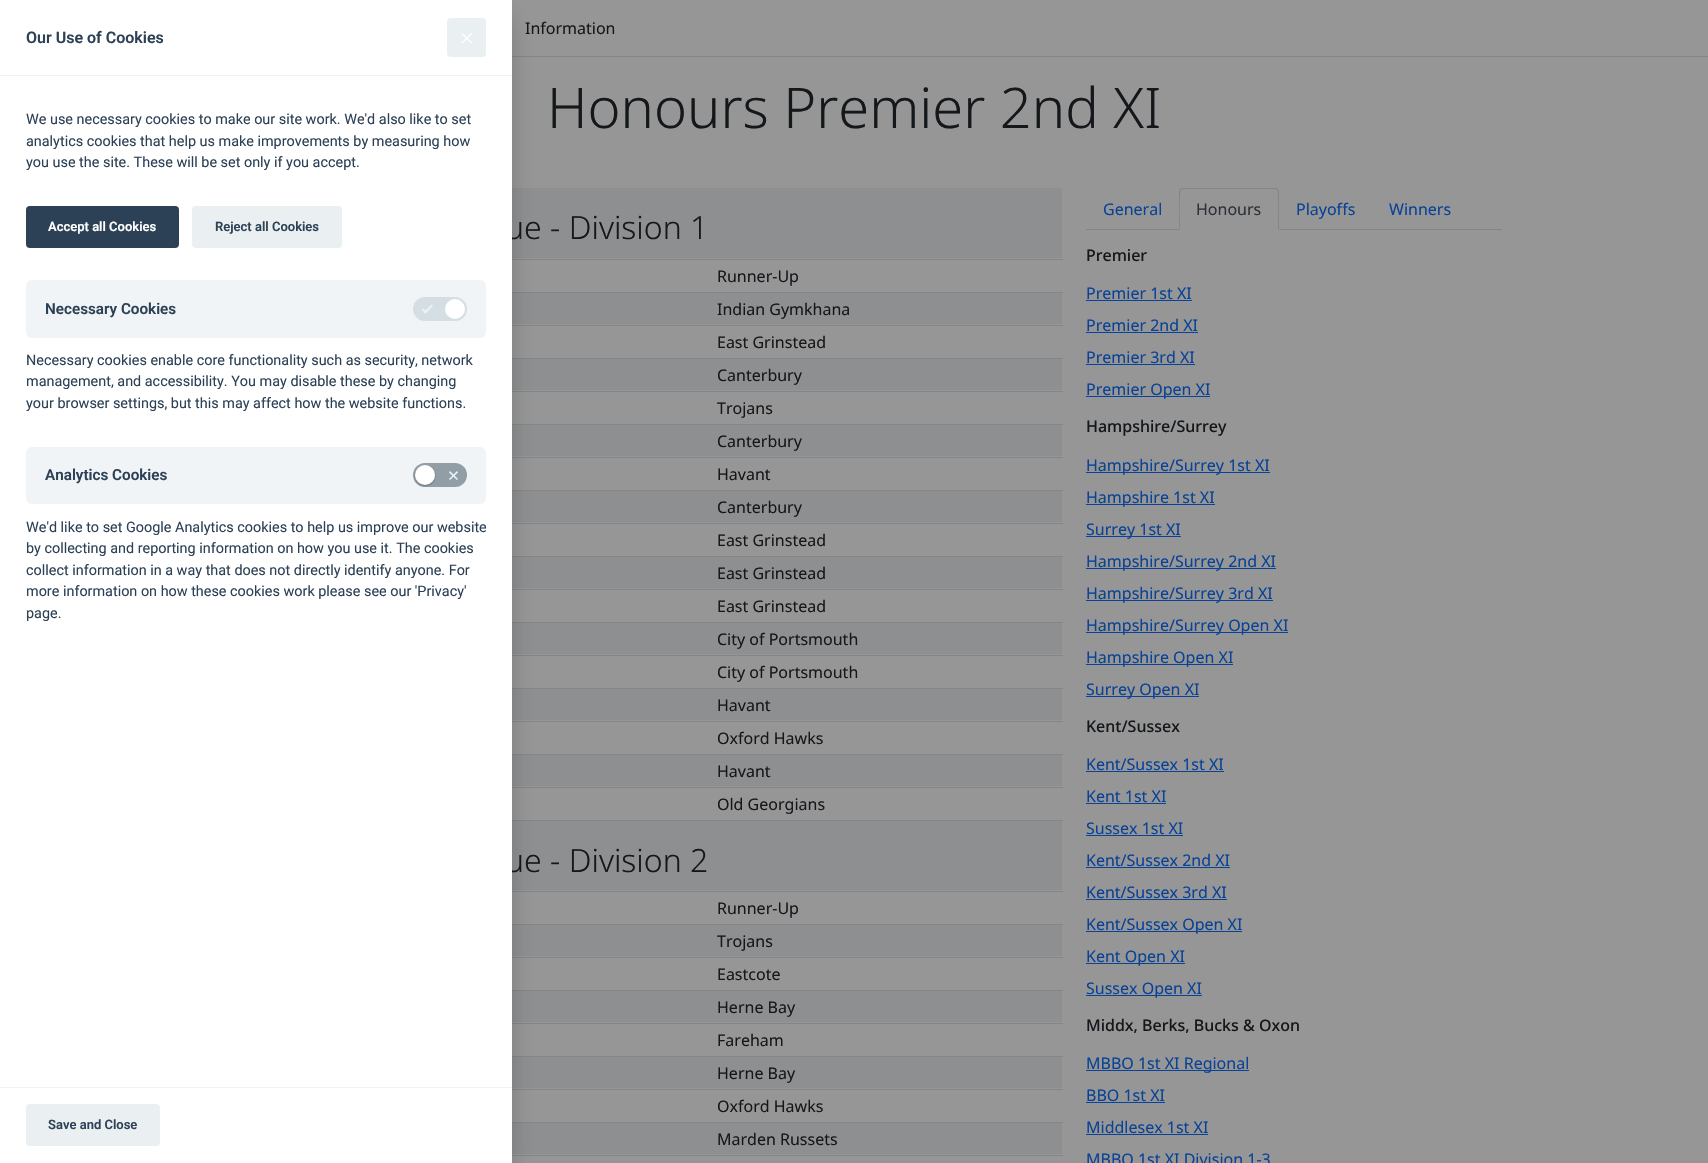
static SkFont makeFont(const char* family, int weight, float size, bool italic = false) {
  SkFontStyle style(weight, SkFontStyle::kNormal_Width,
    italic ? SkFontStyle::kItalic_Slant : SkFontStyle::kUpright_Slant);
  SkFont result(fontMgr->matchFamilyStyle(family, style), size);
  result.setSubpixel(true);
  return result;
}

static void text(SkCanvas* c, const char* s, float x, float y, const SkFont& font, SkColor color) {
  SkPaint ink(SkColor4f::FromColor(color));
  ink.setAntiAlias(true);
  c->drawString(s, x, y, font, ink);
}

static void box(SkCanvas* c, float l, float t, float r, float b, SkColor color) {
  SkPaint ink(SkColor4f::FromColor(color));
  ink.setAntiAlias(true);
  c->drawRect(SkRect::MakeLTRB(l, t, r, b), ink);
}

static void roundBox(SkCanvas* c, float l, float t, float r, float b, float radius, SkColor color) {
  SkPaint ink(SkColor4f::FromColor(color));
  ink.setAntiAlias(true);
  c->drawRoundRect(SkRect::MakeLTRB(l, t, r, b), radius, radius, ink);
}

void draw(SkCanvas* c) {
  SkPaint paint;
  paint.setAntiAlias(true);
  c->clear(0xff969697);
  box(c, 512, 56, 1708, 57, 0xff828689);
  SkFont face1 = makeFont("Noto Sans", 400, 16);
  text(c, "Information", 525, 34, face1, 0xff15181b);
  box(c, 512, 188, 1062, 258, 0xff8e8f90);
  box(c, 512, 259, 1063, 260, 0xff828689);
  box(c, 512, 292, 1063, 293, 0xff828689);
  box(c, 512, 293, 1062, 324, 0xff8e8f90);
  box(c, 512, 325, 1063, 326, 0xff828689);
  box(c, 512, 358, 1063, 359, 0xff828689);
  box(c, 512, 359, 1062, 390, 0xff8e8f90);
  box(c, 512, 391, 1063, 392, 0xff828689);
  box(c, 512, 424, 1063, 425, 0xff828689);
  box(c, 512, 425, 1062, 456, 0xff8e8f90);
  box(c, 512, 457, 1063, 458, 0xff828689);
  box(c, 512, 490, 1063, 491, 0xff828689);
  box(c, 512, 491, 1062, 522, 0xff8e8f90);
  box(c, 512, 523, 1063, 524, 0xff828689);
  box(c, 512, 556, 1063, 557, 0xff828689);
  box(c, 512, 557, 1062, 588, 0xff8e8f90);
  box(c, 512, 589, 1063, 590, 0xff828689);
  box(c, 512, 622, 1063, 623, 0xff828689);
  box(c, 512, 623, 1062, 654, 0xff8e8f90);
  box(c, 512, 655, 1063, 656, 0xff828689);
  box(c, 512, 688, 1063, 689, 0xff828689);
  box(c, 512, 689, 1062, 720, 0xff8e8f90);
  box(c, 512, 721, 1063, 722, 0xff828689);
  box(c, 512, 754, 1063, 755, 0xff828689);
  box(c, 512, 755, 1062, 786, 0xff8e8f90);
  box(c, 512, 787, 1063, 788, 0xff828689);
  box(c, 512, 820, 1063, 821, 0xff828689);
  box(c, 512, 821, 1062, 890, 0xff8e8f90);
  box(c, 512, 891, 1063, 892, 0xff828689);
  box(c, 512, 924, 1063, 925, 0xff828689);
  box(c, 512, 925, 1062, 956, 0xff8e8f90);
  box(c, 512, 957, 1063, 958, 0xff828689);
  box(c, 512, 990, 1063, 991, 0xff828689);
  box(c, 512, 991, 1062, 1022, 0xff8e8f90);
  box(c, 512, 1023, 1063, 1024, 0xff828689);
  box(c, 512, 1056, 1063, 1057, 0xff828689);
  box(c, 512, 1057, 1062, 1088, 0xff8e8f90);
  box(c, 512, 1089, 1063, 1090, 0xff828689);
  box(c, 512, 1122, 1063, 1123, 0xff828689);
  box(c, 512, 1123, 1062, 1154, 0xff8e8f90);
  box(c, 512, 1155, 1063, 1156, 0xff828689);
  paint.setColor(0x42030609);
  paint.setMaskFilter(SkMaskFilter::MakeBlur(kNormal_SkBlurStyle, 13.5f));
  c->drawRect(SkRect::MakeLTRB(5, 18, 507, 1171), paint);
  paint.setMaskFilter(nullptr);
  SkFont face2 = makeFont("Noto Sans", 300, 32);
  text(c, "ue - Division 1", 505, 239, face2, 0xff15181b);
  text(c, "ue - Division 2", 505, 872, face2, 0xff15181b);
  box(c, 0, 0, 512, 1163, 0xffffffff);
  box(c, 0, 75, 512, 76, 0xfff1f3f5);
  SkFont face3 = makeFont("Roboto", 600, 16);
  text(c, "Our Use of Cookies", 26, 43, face3, 0xff2d4156);
  roundBox(c, 447, 18, 486, 57, 4, 0xffeaeff2);
  paint.setColor(0xffffffff);
  c->drawPath(SkPathBuilder().moveTo(471.5f, 33.5f).cubicTo(472, 33.5f, 472, 34, 471.5f, 34.5f).lineTo(463, 43).cubicTo(462.5f, 43.5f, 462, 43.5f, 462, 43).cubicTo(461.5f, 43, 461.5f, 42.5f, 462, 42).lineTo(470.5f, 33.5f).cubicTo(471, 33, 471.5f, 33, 471.5f, 33.5f).close().detach(), paint);
  c->drawPath(SkPathBuilder().moveTo(462, 33.5f).cubicTo(462, 33, 462.5f, 33, 463, 33.5f).lineTo(471.5f, 42).cubicTo(472, 42.5f, 472, 43, 471.5f, 43).cubicTo(471.5f, 43.5f, 471, 43.5f, 470.5f, 43).lineTo(462, 34.5f).cubicTo(461.5f, 34, 461.5f, 33.5f, 462, 33.5f).close().detach(), paint);
  SkFont face4 = makeFont("Roboto", 400, 14.4f);
  text(c, "We use necessary cookies to make our site work. We'd also like to set", 26, 124, face4, 0xff2d4156);
  text(c, "analytics cookies that help us make improvements by measuring how", 26, 146, face4, 0xff2d4156);
  text(c, "you use the site. These will be set only if you accept.", 26, 167, face4, 0xff2d4156);
  roundBox(c, 26, 206, 179, 248, 4, 0xff2d4156);
  SkFont face5 = makeFont("Roboto", 600, 13);
  text(c, "Accept all Cookies", 48, 231, face5, 0xffffffff);
  roundBox(c, 192, 206, 342, 248, 4, 0xffeaeff2);
  text(c, "Reject all Cookies", 215, 231, face5, 0xff2d4156);
  roundBox(c, 26, 280, 486, 338, 6, 0xfff0f4f7);
  SkFont face6 = makeFont("Roboto", 600, 15.25f);
  text(c, "Necessary Cookies", 45, 314, face6, 0xff2d4156);
  roundBox(c, 413, 297, 467, 321, 12, 0xffd5dee2);
  paint.setColor(0xffecf2fa);
  c->drawPath(SkPathBuilder().moveTo(431.5f, 304.5f).lineTo(433, 306).lineTo(425.5f, 313.5f).lineTo(424, 312).close().detach(), paint);
  c->drawPath(SkPathBuilder().moveTo(423, 308.5f).lineTo(427, 312).lineTo(425.5f, 313.5f).lineTo(422, 310).close().detach(), paint);
  paint.setColor(0xffffffff);
  c->drawCircle(455, 309, 10, paint);
  text(c, "Necessary cookies enable core functionality such as security, network", 26, 365, face4, 0xff2d4156);
  text(c, "management, and accessibility. You may disable these by changing", 26, 386, face4, 0xff2d4156);
  text(c, "your browser settings, but this may affect how the website functions.", 26, 408, face4, 0xff2d4156);
  roundBox(c, 26, 447, 486, 504, 6, 0xfff0f4f7);
  text(c, "Analytics Cookies", 45, 480, face6, 0xff2d4156);
  roundBox(c, 413, 463, 467, 487, 12, 0xff919ea6);
  paint.setColor(0x5c182023);
  paint.setMaskFilter(SkMaskFilter::MakeBlur(kNormal_SkBlurStyle, 1));
  c->drawRoundRect(SkRect::MakeLTRB(415, 466, 435, 486), 10, 10, paint);
  paint.setMaskFilter(nullptr);
  paint.setColor(0xffffffff);
  c->drawCircle(425, 475, 10, paint);
  paint.setColor(0xffecf2fa);
  c->drawPath(SkPathBuilder().moveTo(457, 471).lineTo(458, 472.5f).lineTo(450, 480).lineTo(449, 479).close().detach(), paint);
  c->drawPath(SkPathBuilder().moveTo(449, 472.5f).lineTo(450, 471).lineTo(458, 479).lineTo(457, 480).close().detach(), paint);
  text(c, "We'd like to set Google Analytics cookies to help us improve our website", 26, 532, face4, 0xff2d4156);
  text(c, "by collecting and reporting information on how you use it. The cookies", 26, 553, face4, 0xff2d4156);
  text(c, "collect information in a way that does not directly identify anyone. For", 26, 575, face4, 0xff2d4156);
  text(c, "more information on how these cookies work please see our 'Privacy'", 26, 596, face4, 0xff2d4156);
  text(c, "page.", 26, 618, face4, 0xff2d4156);
  box(c, 0, 1087, 512, 1088, 0xfff1f3f5);
  roundBox(c, 26, 1104, 160, 1146, 4, 0xffeaeff2);
  text(c, "Save and Close", 48, 1129, face5, 0xff2d4156);
  SkFont face7 = makeFont("Noto Sans", 300, 56);
  text(c, "Honours Premier 2nd XI", 547, 128, face7, 0xff15181b);
  text(c, "Runner-Up", 717, 282, face1, 0xff15181b);
  text(c, "Indian Gymkhana", 717, 315, face1, 0xff15181b);
  text(c, "East Grinstead", 717, 348, face1, 0xff15181b);
  text(c, "Canterbury", 717, 381, face1, 0xff15181b);
  text(c, "Trojans", 717, 414, face1, 0xff15181b);
  text(c, "Canterbury", 717, 447, face1, 0xff15181b);
  text(c, "Havant", 717, 480, face1, 0xff15181b);
  text(c, "Canterbury", 717, 513, face1, 0xff15181b);
  text(c, "East Grinstead", 717, 546, face1, 0xff15181b);
  text(c, "East Grinstead", 717, 579, face1, 0xff15181b);
  text(c, "East Grinstead", 717, 612, face1, 0xff15181b);
  text(c, "City of Portsmouth", 717, 645, face1, 0xff15181b);
  text(c, "City of Portsmouth", 717, 678, face1, 0xff15181b);
  text(c, "Havant", 717, 711, face1, 0xff15181b);
  text(c, "Oxford Hawks", 717, 744, face1, 0xff15181b);
  text(c, "Havant", 717, 777, face1, 0xff15181b);
  text(c, "Old Georgians", 717, 810, face1, 0xff15181b);
  text(c, "Runner-Up", 717, 914, face1, 0xff15181b);
  text(c, "Trojans", 717, 947, face1, 0xff15181b);
  text(c, "Eastcote", 717, 980, face1, 0xff15181b);
  text(c, "Herne Bay", 717, 1013, face1, 0xff15181b);
  text(c, "Fareham", 717, 1046, face1, 0xff15181b);
  text(c, "Herne Bay", 717, 1079, face1, 0xff15181b);
  text(c, "Oxford Hawks", 717, 1112, face1, 0xff15181b);
  text(c, "Marden Russets", 717, 1145, face1, 0xff15181b);
  box(c, 1086, 229, 1502, 230, 0xff828689);
  text(c, "General", 1103, 215, face1, 0xff094296);
  paint.setColor(0xff969697);
  c->drawPath(SkPathBuilder().moveTo(1183, 188).lineTo(1275, 188).cubicTo(1277, 188, 1279, 190, 1279, 192).lineTo(1279, 230).lineTo(1179, 230).lineTo(1179, 192).cubicTo(1179, 190, 1181, 188, 1183, 188).close().detach(), paint);
  paint.setColor(0xff828689);
  c->drawPath(SkPathBuilder().moveTo(1183, 188).lineTo(1180, 189).lineTo(1181, 190).lineTo(1183, 189).lineTo(1275, 189).lineTo(1277, 190).lineTo(1278, 189).lineTo(1275, 188).close().detach(), paint);
  c->drawPath(SkPathBuilder().moveTo(1279, 230).lineTo(1279, 192).cubicTo(1279, 191, 1278, 190, 1278, 189).lineTo(1277, 190).cubicTo(1279, 192, 1278, 224, 1278, 229).close().detach(), paint);
  paint.setColor(0xff969697);
  c->drawPath(SkPathBuilder().moveTo(1279, 230).lineTo(1278, 229).lineTo(1180, 229).lineTo(1179, 230).close().detach(), paint);
  paint.setColor(0xff828689);
  c->drawPath(SkPathBuilder().moveTo(1179, 230).lineTo(1180, 229).cubicTo(1180, 224, 1179, 192, 1181, 190).lineTo(1180, 189).lineTo(1179, 192).close().detach(), paint);
  text(c, "Honours", 1196, 215, face1, 0xff2c3136);
  text(c, "Playoffs", 1296, 215, face1, 0xff094296);
  text(c, "Winners", 1389, 215, face1, 0xff094296);
  SkFont face8 = makeFont("Noto Sans", 500, 16);
  text(c, "Premier", 1086, 261, face8, 0xff15181b);
  text(c, "Premier 1st XI", 1086, 299, face1, 0xff094296);
  box(c, 1086, 300, 1192, 301, 0xff094296);
  text(c, "Premier 2nd XI", 1086, 331, face1, 0xff094296);
  box(c, 1086, 332, 1198, 333, 0xff094296);
  text(c, "Premier 3rd XI", 1086, 363, face1, 0xff094296);
  box(c, 1086, 364, 1195, 365, 0xff094296);
  box(c, 1086, 396, 1210, 397, 0xff094296);
  text(c, "Premier Open XI", 1086, 395, face1, 0xff094296);
  text(c, "Hampshire/Surrey", 1086, 432, face8, 0xff15181b);
  box(c, 1086, 472, 1270, 473, 0xff094296);
  text(c, "Hampshire/Surrey 1st XI", 1086, 471, face1, 0xff094296);
  box(c, 1086, 504, 1215, 505, 0xff094296);
  text(c, "Hampshire 1st XI", 1086, 503, face1, 0xff094296);
  box(c, 1086, 536, 1181, 537, 0xff094296);
  text(c, "Surrey 1st XI", 1086, 535, face1, 0xff094296);
  box(c, 1086, 568, 1276, 569, 0xff094296);
  text(c, "Hampshire/Surrey 2nd XI", 1086, 567, face1, 0xff094296);
  box(c, 1086, 600, 1273, 601, 0xff094296);
  text(c, "Hampshire/Surrey 3rd XI", 1086, 599, face1, 0xff094296);
  box(c, 1086, 632, 1288, 633, 0xff094296);
  text(c, "Hampshire/Surrey Open XI", 1086, 631, face1, 0xff094296);
  box(c, 1086, 664, 1233, 665, 0xff094296);
  text(c, "Hampshire Open XI", 1086, 663, face1, 0xff094296);
  box(c, 1086, 696, 1199, 697, 0xff094296);
  text(c, "Surrey Open XI", 1086, 695, face1, 0xff094296);
  text(c, "Kent/Sussex", 1086, 732, face8, 0xff15181b);
  text(c, "Kent/Sussex 1st XI", 1086, 770, face1, 0xff094296);
  box(c, 1086, 771, 1224, 772, 0xff094296);
  text(c, "Kent 1st XI", 1086, 802, face1, 0xff094296);
  box(c, 1086, 803, 1166, 804, 0xff094296);
  text(c, "Sussex 1st XI", 1086, 834, face1, 0xff094296);
  box(c, 1086, 835, 1183, 836, 0xff094296);
  text(c, "Kent/Sussex 2nd XI", 1086, 866, face1, 0xff094296);
  box(c, 1086, 867, 1230, 868, 0xff094296);
  text(c, "Kent/Sussex 3rd XI", 1086, 898, face1, 0xff094296);
  box(c, 1086, 899, 1227, 900, 0xff094296);
  box(c, 1086, 931, 1242, 932, 0xff094296);
  text(c, "Kent/Sussex Open XI", 1086, 930, face1, 0xff094296);
  box(c, 1086, 963, 1185, 964, 0xff094296);
  text(c, "Kent Open XI", 1086, 962, face1, 0xff094296);
  box(c, 1086, 995, 1202, 996, 0xff094296);
  text(c, "Sussex Open XI", 1086, 994, face1, 0xff094296);
  text(c, "Middx, Berks, Bucks & Oxon", 1086, 1031, face8, 0xff15181b);
  box(c, 1086, 1070, 1249, 1071, 0xff094296);
  text(c, "MBBO 1st XI Regional", 1086, 1069, face1, 0xff094296);
  text(c, "BBO 1st XI", 1086, 1101, face1, 0xff094296);
  box(c, 1086, 1102, 1165, 1103, 0xff094296);
  text(c, "Middlesex 1st XI", 1086, 1133, face1, 0xff094296);
  box(c, 1086, 1134, 1208, 1135, 0xff094296);
  text(c, "MBBO 1st XI Division 1-3", 1086, 1165, face1, 0xff094296);
}
